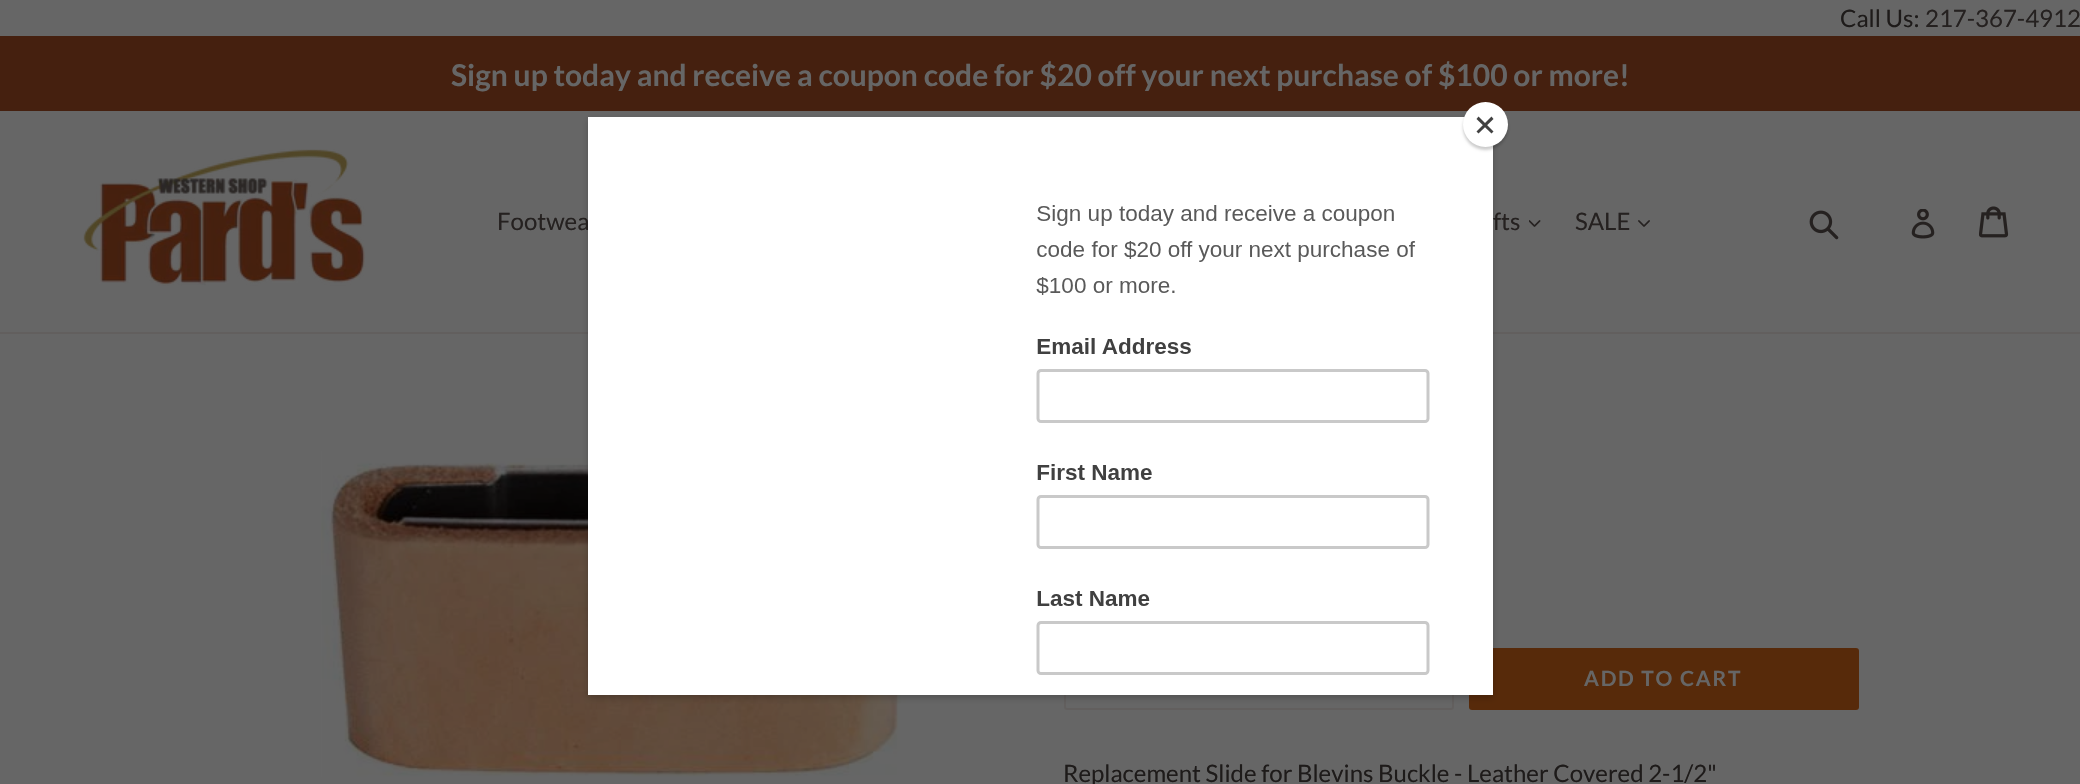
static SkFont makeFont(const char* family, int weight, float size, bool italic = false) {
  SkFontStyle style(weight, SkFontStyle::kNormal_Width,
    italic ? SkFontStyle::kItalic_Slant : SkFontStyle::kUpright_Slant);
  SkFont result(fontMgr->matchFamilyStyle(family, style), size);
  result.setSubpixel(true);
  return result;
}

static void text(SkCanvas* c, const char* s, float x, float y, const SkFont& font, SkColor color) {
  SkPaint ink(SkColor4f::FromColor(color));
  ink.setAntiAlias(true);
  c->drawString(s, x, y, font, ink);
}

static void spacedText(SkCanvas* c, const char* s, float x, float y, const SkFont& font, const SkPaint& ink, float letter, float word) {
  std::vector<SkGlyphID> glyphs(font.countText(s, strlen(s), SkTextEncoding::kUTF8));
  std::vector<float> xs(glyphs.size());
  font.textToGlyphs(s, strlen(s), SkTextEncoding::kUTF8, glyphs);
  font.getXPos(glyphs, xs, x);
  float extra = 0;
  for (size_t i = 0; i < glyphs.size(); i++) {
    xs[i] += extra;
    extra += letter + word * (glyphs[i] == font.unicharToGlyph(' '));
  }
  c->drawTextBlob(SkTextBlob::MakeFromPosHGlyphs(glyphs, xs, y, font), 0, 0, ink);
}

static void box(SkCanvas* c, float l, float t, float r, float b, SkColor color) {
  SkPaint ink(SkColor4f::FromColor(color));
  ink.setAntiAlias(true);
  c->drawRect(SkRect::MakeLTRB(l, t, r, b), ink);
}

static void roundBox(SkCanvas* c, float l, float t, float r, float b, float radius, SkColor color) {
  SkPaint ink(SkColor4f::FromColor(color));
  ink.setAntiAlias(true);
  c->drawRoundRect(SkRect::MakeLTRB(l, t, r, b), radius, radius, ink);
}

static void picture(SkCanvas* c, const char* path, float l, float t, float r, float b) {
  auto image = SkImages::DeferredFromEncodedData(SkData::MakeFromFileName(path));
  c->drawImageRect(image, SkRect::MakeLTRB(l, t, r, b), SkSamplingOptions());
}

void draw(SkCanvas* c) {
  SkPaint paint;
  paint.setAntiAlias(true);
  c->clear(0xff666666);
  SkFont face1 = makeFont("Lato", 400, 24);
  text(c, "Call Us:", 1840, 27, face1, 0xff1e1b1a);
  text(c, "217-367-4912", 1925, 27, face1, 0xff252120);
  box(c, 0, 36, 2080, 111, 0xff45200f);
  SkFont face2 = makeFont("Lato", 700, 30);
  text(c, "Sign up today and receive a coupon code for $20 off your next purchase of $100 or more!", 451, 86, face2, 0xff666666);
  box(c, 0, 332, 2080, 334, 0xff625f5e);
  picture(c, "img_01.png", 83, 149, 366, 286);
  text(c, "Footwea", 497, 230, face1, 0xff252120);
  text(c, "fts", 1493, 230, face1, 0xff252120);
  picture(c, "img_02.png", 1529, 220, 1541, 227);
  text(c, "SALE", 1575, 230, face1, 0xff252120);
  picture(c, "img_03.png", 1638, 220, 1650, 227);
  picture(c, "img_04.png", 1809, 210, 1839, 240);
  picture(c, "img_05.png", 1911, 209, 1935, 239);
  picture(c, "img_06.png", 1979, 206, 2009, 238);
  picture(c, "img_08.png", 321, 451, 921, 777);
  paint.setStyle(SkPaint::kStroke_Style);
  paint.setStrokeWidth(2);
  paint.setColor(0xff625f5e);
  c->drawRoundRect(SkRect::MakeLTRB(1065, 649, 1453, 709), 2, 2, paint);
  roundBox(c, 1469, 648, 1859, 710, 3, 0xff572a0a);
  paint.setStyle(SkPaint::kFill_Style);
  paint.setColor(0x33000000);
  paint.setMaskFilter(SkMaskFilter::MakeBlur(kNormal_SkBlurStyle, 3));
  c->drawRect(SkRect::MakeLTRB(588, 120, 1493, 698), paint);
  paint.setMaskFilter(nullptr);
  picture(c, "img_07.png", 588, 117, 1493, 695);
  paint.setMaskFilter(SkMaskFilter::MakeBlur(kNormal_SkBlurStyle, 1.5f));
  c->drawRoundRect(SkRect::MakeLTRB(1463, 105, 1508, 150), 22.5f, 22.5f, paint);
  paint.setMaskFilter(nullptr);
  paint.setColor(0xffffffff);
  c->drawCircle(1485.5f, 124.5f, 22.5f, paint);
  paint.setColor(0xff414141);
  c->drawPath(SkPathBuilder().moveTo(1491.5f, 116.5f).lineTo(1493.5f, 119).lineTo(1478.5f, 133.5f).lineTo(1476.5f, 131.5f).close().detach(), paint);
  c->drawPath(SkPathBuilder().moveTo(1476.5f, 119).lineTo(1478.5f, 116.5f).lineTo(1493.5f, 131.5f).lineTo(1491.5f, 133.5f).close().detach(), paint);
  SkFont face3 = makeFont("Lato", 700, 21);
  paint.setColor(0xff666666);
  spacedText(c, "ADD TO CART", 1584, 686, face3, paint, 1.75f, 0);
  text(c, "Replacement Slide for Blevins Buckle - Leather Covered 2-1/2\"", 1063, 782, face1, 0xff1e1b1a);
}
